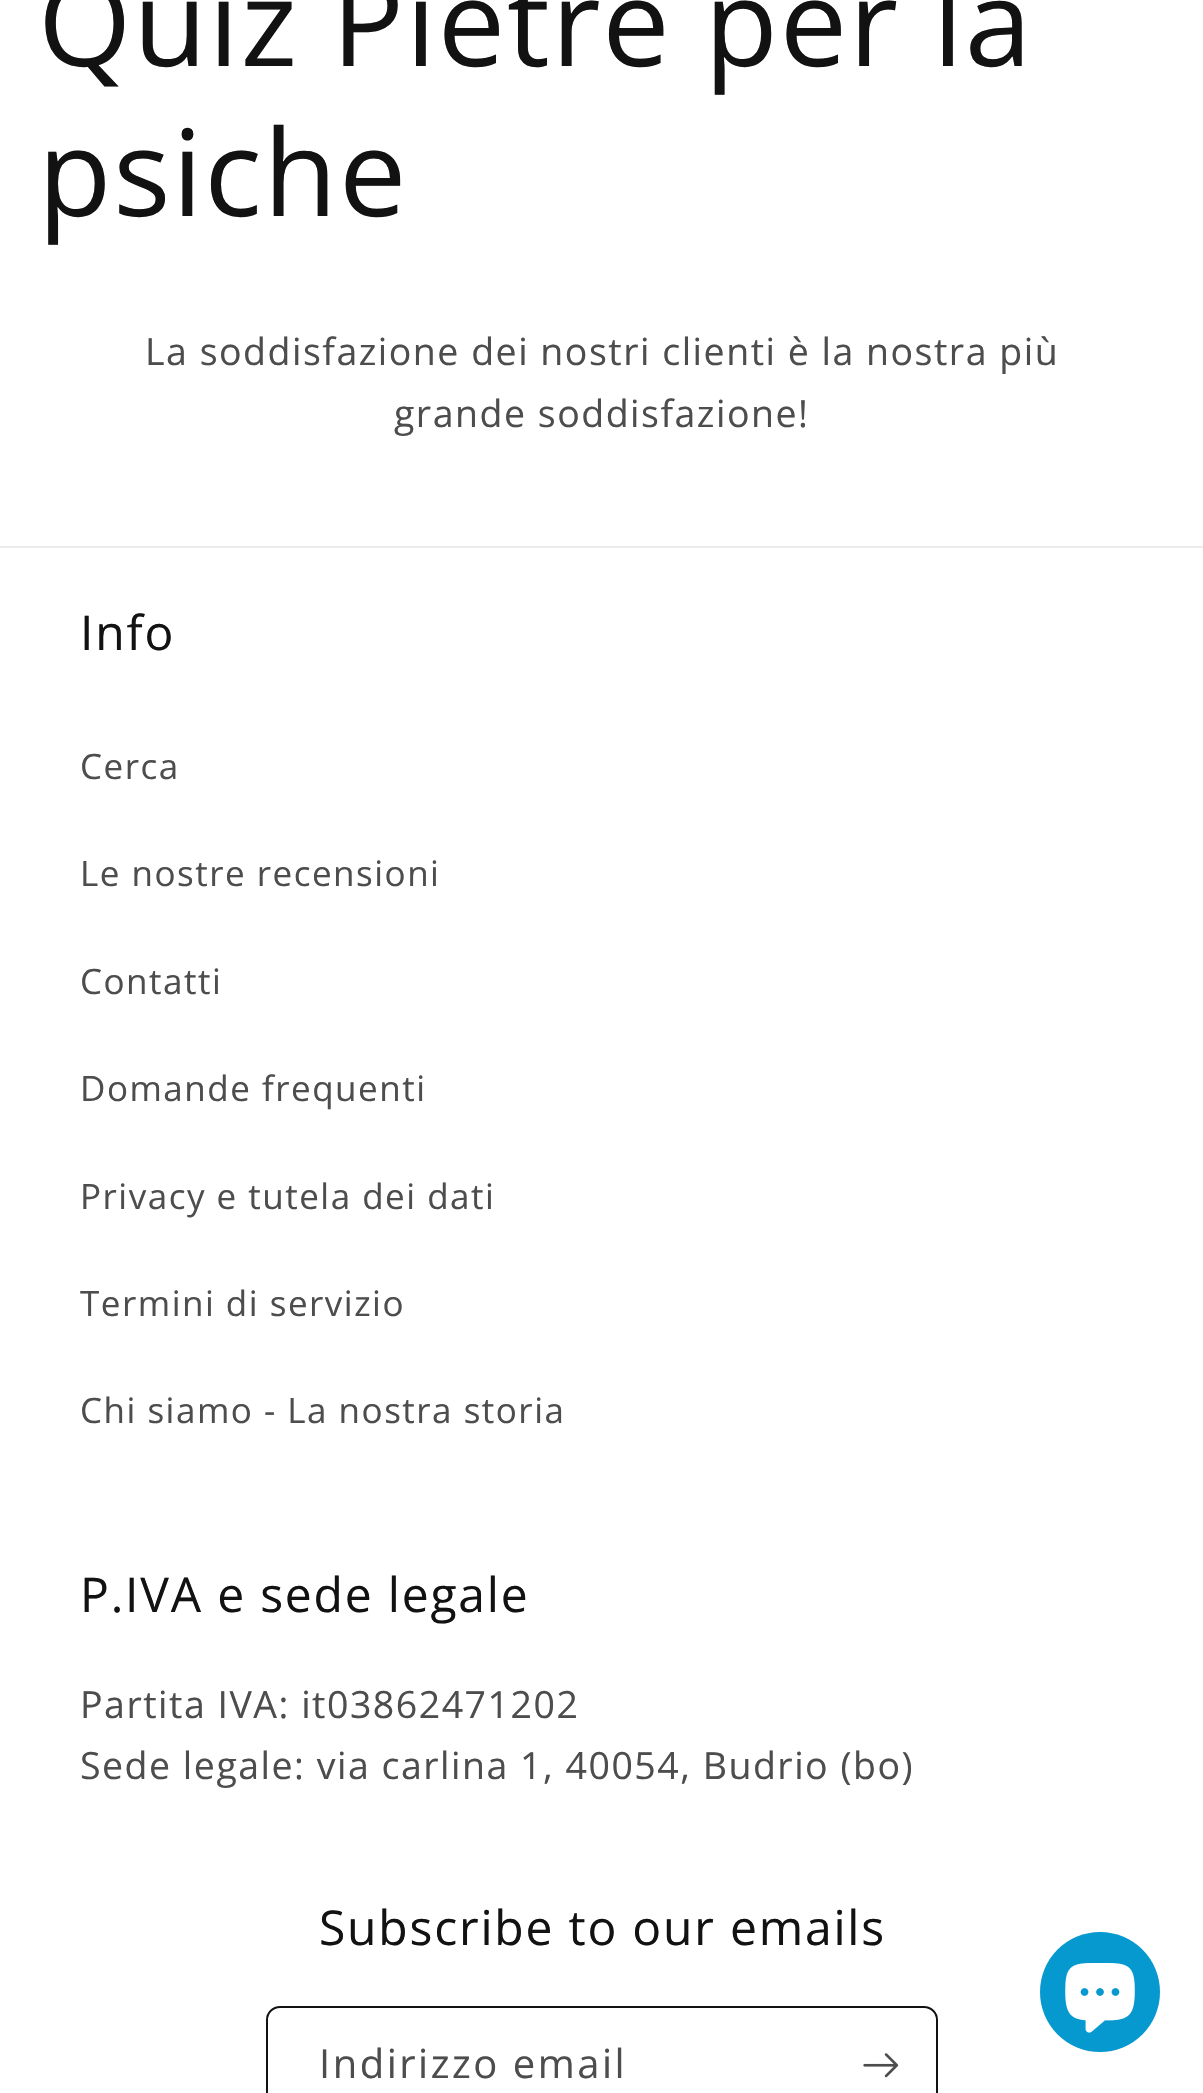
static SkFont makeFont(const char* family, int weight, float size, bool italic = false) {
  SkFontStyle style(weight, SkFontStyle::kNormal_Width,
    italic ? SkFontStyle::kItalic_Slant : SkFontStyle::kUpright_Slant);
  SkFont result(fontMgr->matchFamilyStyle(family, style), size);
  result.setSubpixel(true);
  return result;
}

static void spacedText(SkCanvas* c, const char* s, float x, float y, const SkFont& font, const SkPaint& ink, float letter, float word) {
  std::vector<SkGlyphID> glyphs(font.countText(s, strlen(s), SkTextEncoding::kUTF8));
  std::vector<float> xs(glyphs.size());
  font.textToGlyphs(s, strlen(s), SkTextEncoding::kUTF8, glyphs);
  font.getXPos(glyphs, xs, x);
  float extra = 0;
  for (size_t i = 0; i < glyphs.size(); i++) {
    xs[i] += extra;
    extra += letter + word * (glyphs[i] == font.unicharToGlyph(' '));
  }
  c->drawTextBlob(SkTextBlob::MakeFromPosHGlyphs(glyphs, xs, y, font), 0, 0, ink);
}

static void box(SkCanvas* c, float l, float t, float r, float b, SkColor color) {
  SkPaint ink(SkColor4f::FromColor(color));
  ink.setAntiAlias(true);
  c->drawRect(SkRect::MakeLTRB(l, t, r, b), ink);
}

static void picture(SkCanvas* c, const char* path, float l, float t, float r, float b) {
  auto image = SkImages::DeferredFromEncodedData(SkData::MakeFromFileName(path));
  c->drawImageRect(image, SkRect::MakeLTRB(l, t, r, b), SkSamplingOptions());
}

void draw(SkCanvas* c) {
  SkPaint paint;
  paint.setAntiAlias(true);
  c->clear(0xffffffff);
  SkFont face1 = makeFont("Open Sans", 400, 120);
  paint.setColor(0xff121212);
  spacedText(c, "Quiz Pietre per la", 38, 66, face1, paint, 1.8f, 0);
  spacedText(c, "psiche", 38, 216, face1, paint, 1.8f, 0);
  SkFont face2 = makeFont("Open Sans", 400, 37.5f);
  paint.setColor(0xff4d4d4d);
  spacedText(c, "La soddisfazione dei nostri clienti è la nostra più", 145, 365, face2, paint, 1.5f, 0);
  spacedText(c, "grande soddisfazione!", 394, 427, face2, paint, 1.5f, 0);
  box(c, 0, 546, 1203, 548, 0xffececec);
  SkFont face3 = makeFont("Open Sans", 400, 48);
  paint.setColor(0xff121212);
  spacedText(c, "Info", 80, 650, face3, paint, 1.8f, 0);
  SkFont face4 = makeFont("Open Sans", 400, 35);
  paint.setColor(0xff4d4d4d);
  spacedText(c, "Cerca", 80, 779, face4, paint, 1.5f, 0);
  spacedText(c, "Le nostre recensioni", 80, 886, face4, paint, 1.5f, 0);
  spacedText(c, "Contatti", 80, 994, face4, paint, 1.5f, 0);
  spacedText(c, "Domande frequenti", 80, 1101, face4, paint, 1.5f, 0);
  spacedText(c, "Privacy e tutela dei dati", 80, 1209, face4, paint, 1.5f, 0);
  spacedText(c, "Termini di servizio", 80, 1316, face4, paint, 1.5f, 0);
  spacedText(c, "Chi siamo - La nostra storia", 80, 1423, face4, paint, 1.5f, 0);
  paint.setColor(0xff121212);
  spacedText(c, "P.IVA e sede legale", 80, 1612, face3, paint, 1.8f, 0);
  paint.setColor(0xff4d4d4d);
  spacedText(c, "Partita IVA: it03862471202", 80, 1718, face2, paint, 1.5f, 0);
  spacedText(c, "Sede legale: via carlina 1, 40054, Budrio (bo)", 80, 1779, face2, paint, 1.5f, 0);
  paint.setColor(0xff121212);
  spacedText(c, "Subscribe to our emails", 319, 1945, face3, paint, 1.8f, 0);
  paint.setStyle(SkPaint::kStroke_Style);
  paint.setStrokeWidth(2);
  c->drawRoundRect(SkRect::MakeLTRB(267, 2007, 937, 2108), 13, 13, paint);
  SkFont face5 = makeFont("Open Sans", 400, 40);
  paint.setStyle(SkPaint::kFill_Style);
  paint.setColor(0xff4d4d4d);
  spacedText(c, "Indirizzo email", 319, 2078, face5, paint, 2.5f, 0);
  picture(c, "img_01.png", 863, 2053, 899, 2078);
  paint.setColor(0xff0599cf);
  c->drawCircle(1100, 1992, 60, paint);
  picture(c, "img_02.png", 1065, 1963, 1135, 2033);
}
